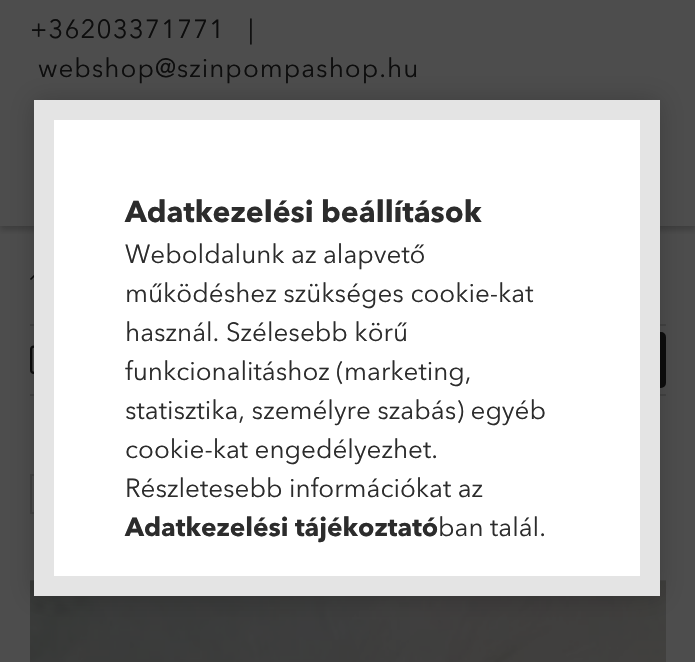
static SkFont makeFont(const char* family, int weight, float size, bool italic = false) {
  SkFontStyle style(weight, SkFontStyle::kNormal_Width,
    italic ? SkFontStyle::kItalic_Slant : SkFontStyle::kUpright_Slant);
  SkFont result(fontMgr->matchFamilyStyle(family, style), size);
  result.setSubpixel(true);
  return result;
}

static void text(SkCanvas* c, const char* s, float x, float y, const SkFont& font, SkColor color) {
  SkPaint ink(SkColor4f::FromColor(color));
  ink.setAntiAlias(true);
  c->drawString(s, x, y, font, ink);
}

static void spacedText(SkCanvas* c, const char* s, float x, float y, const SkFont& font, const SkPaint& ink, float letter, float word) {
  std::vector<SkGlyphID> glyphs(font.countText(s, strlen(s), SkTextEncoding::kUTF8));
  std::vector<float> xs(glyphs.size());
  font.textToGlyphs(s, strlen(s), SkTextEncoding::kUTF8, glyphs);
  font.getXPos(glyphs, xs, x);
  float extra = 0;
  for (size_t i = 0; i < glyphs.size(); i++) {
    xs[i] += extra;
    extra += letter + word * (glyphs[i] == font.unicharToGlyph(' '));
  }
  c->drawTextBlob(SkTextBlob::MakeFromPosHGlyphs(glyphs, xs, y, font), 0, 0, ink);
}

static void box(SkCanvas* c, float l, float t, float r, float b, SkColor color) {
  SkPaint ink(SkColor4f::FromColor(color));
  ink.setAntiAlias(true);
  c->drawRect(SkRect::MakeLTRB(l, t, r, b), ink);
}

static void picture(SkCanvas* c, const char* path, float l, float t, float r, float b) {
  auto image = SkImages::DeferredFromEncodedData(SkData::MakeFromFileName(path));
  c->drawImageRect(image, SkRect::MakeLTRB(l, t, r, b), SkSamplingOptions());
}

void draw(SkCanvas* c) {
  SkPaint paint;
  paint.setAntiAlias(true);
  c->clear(0xff4d4d4d);
  c->save();
  c->clipRect(SkRect::MakeLTRB(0, 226, 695, 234));
  paint.setColor(0x33000000);
  paint.setMaskFilter(SkMaskFilter::MakeBlur(kNormal_SkBlurStyle, 3));
  c->drawRect(SkRect::MakeLTRB(0, 4, 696, 230), paint);
  paint.setMaskFilter(nullptr);
  c->restore();
  SkFont face1 = makeFont("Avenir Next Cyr", 400, 26);
  paint.setColor(0xff0d0d0d);
  spacedText(c, "+36203371771", 30, 38, face1, paint, 1, 0);
  spacedText(c, "|", 248, 38, face1, paint, 1, 0);
  spacedText(c, "webshop@szinpompashop.hu", 38, 77, face1, paint, 1, 0);
  picture(c, "img_01.png", 30, 275, 34, 280);
  box(c, 30, 324, 666, 326, 0xff424242);
  box(c, 30, 394, 666, 396, 0xff424242);
  picture(c, "img_02.png", 30, 345, 34, 374);
  c->drawRoundRect(SkRect::MakeLTRB(501, 333, 665, 387), 4, 4, paint);
  paint.setStyle(SkPaint::kStroke_Style);
  paint.setStrokeWidth(2);
  c->drawRoundRect(SkRect::MakeLTRB(501, 333, 665, 387), 4, 4, paint);
  paint.setColor(0xff424242);
  c->drawRect(SkRect::MakeLTRB(31, 475, 89, 513), paint);
  picture(c, "img_03.png", 30, 580, 666, 662);
  paint.setStyle(SkPaint::kFill_Style);
  paint.setColor(0x33000000);
  paint.setMaskFilter(SkMaskFilter::MakeBlur(kNormal_SkBlurStyle, 12));
  c->drawRect(SkRect::MakeLTRB(34, 100, 660, 596), paint);
  paint.setMaskFilter(nullptr);
  paint.setColor(0xffffffff);
  c->drawRect(SkRect::MakeLTRB(44, 110, 650, 586), paint);
  paint.setStyle(SkPaint::kStroke_Style);
  paint.setStrokeWidth(20);
  paint.setColor(0xffe4e4e4);
  c->drawRect(SkRect::MakeLTRB(44, 110, 650, 586), paint);
  SkFont face2 = makeFont("Avenir Next Cyr", 700, 30);
  text(c, "Adatkezelési beállítások", 125, 222, face2, 0xff2c2c2c);
  text(c, "Weboldalunk az alapvető", 125, 263, face1, 0xff2c2c2c);
  text(c, "működéshez szükséges cookie-kat", 125, 302, face1, 0xff2c2c2c);
  text(c, "használ. Szélesebb körű", 125, 341, face1, 0xff2c2c2c);
  text(c, "funkcionalitáshoz (marketing,", 125, 380, face1, 0xff2c2c2c);
  text(c, "statisztika, személyre szabás) egyéb", 125, 419, face1, 0xff2c2c2c);
  text(c, "cookie-kat engedélyezhet.", 125, 458, face1, 0xff2c2c2c);
  text(c, "Részletesebb információkat az", 125, 497, face1, 0xff2c2c2c);
  SkFont face3 = makeFont("Avenir Next Cyr", 700, 26);
  text(c, "Adatkezelési tájékoztató", 125, 536, face3, 0xff2c2c2c);
  text(c, "ban talál.", 438, 536, face1, 0xff2c2c2c);
}
